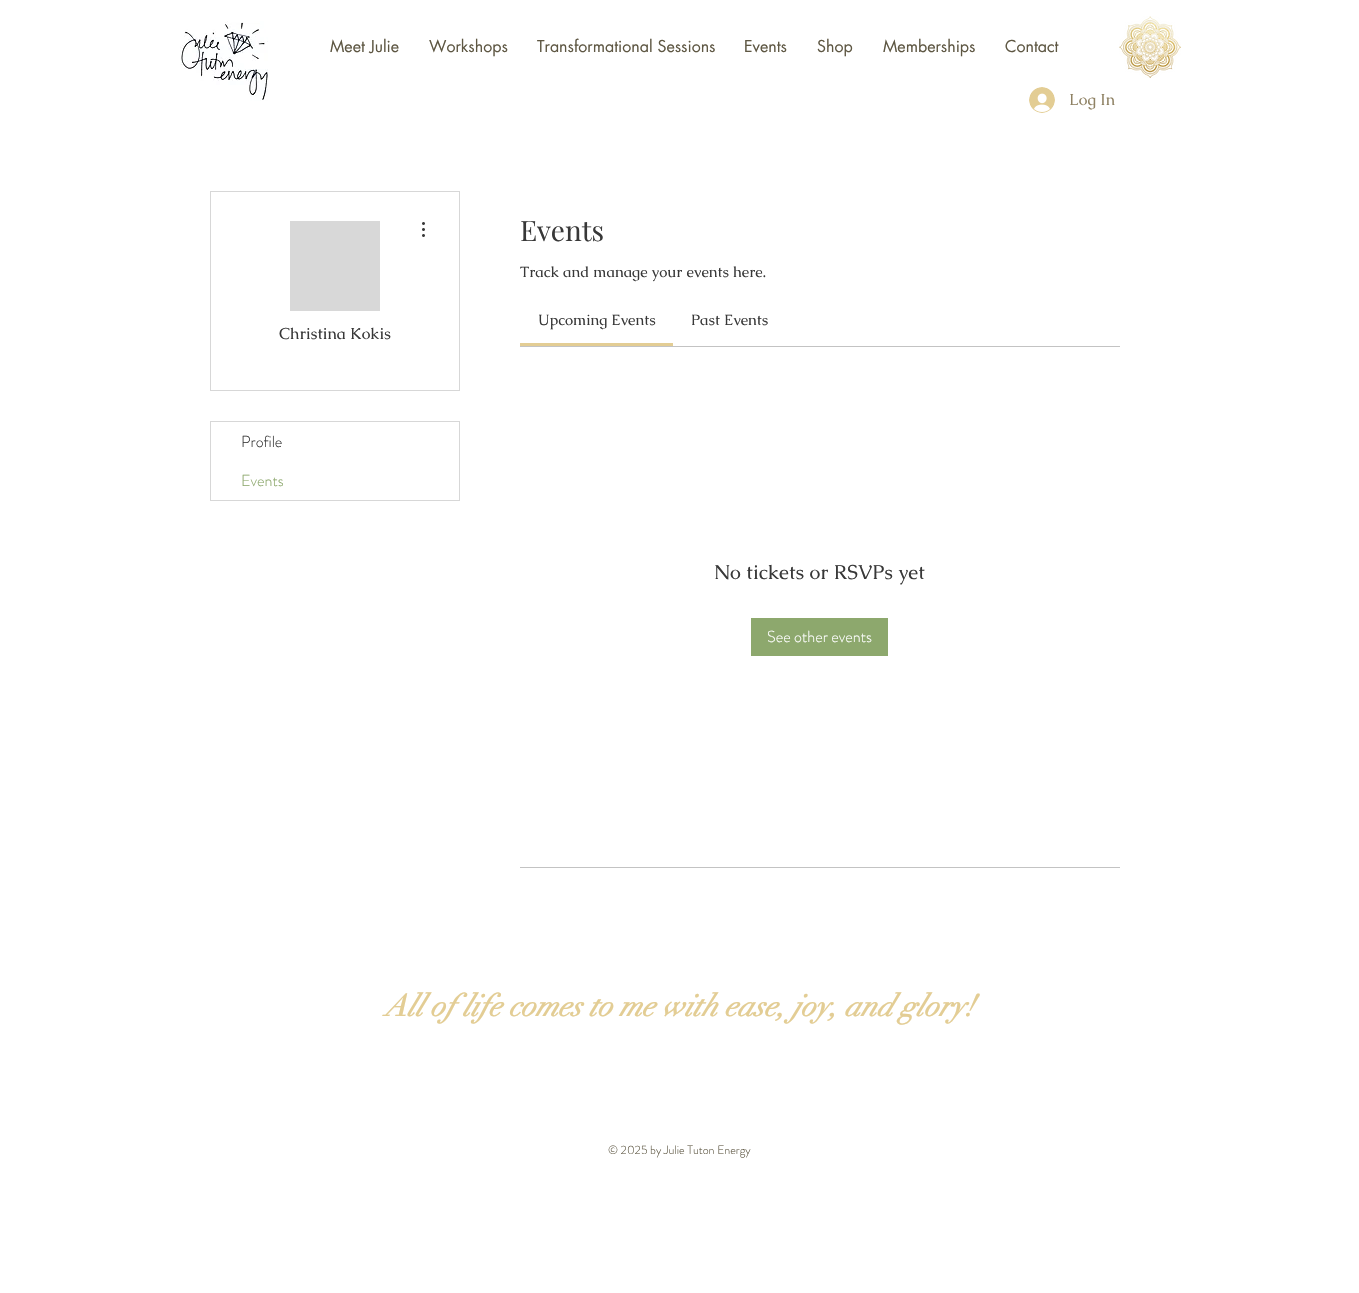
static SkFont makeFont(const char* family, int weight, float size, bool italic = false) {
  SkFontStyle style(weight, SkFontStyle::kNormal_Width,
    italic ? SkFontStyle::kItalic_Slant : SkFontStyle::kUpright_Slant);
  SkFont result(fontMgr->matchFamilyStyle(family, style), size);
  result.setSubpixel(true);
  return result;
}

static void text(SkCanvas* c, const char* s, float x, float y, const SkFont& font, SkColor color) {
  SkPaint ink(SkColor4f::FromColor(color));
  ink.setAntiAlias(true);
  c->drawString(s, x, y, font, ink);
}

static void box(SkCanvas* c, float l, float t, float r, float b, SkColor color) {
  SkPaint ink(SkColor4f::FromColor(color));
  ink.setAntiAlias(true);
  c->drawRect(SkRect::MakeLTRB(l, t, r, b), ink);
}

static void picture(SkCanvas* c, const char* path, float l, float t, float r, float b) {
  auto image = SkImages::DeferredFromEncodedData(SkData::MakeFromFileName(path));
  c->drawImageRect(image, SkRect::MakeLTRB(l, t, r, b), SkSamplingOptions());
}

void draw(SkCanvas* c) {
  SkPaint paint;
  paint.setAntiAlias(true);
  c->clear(0xffffffff);
  picture(c, "img_01.png", 180, 21, 268, 101);
  SkFont face1 = makeFont("futura", 400, 16);
  text(c, "Meet Julie", 330, 52, face1, 0xff5e5743);
  text(c, "Workshops", 429, 52, face1, 0xff5e5743);
  text(c, "Transformational Sessions", 537, 52, face1, 0xff5e5743);
  text(c, "Events", 744, 52, face1, 0xff5e5743);
  text(c, "Shop", 817, 52, face1, 0xff5e5743);
  text(c, "Memberships", 883, 52, face1, 0xff5e5743);
  text(c, "Contact", 1005, 52, face1, 0xff5e5743);
  picture(c, "img_02.png", 1119, 16, 1181, 78);
  picture(c, "img_03.png", 1029, 87, 1055, 113);
  SkFont face2 = makeFont("Caudex", 400, 16);
  text(c, "Log In", 1069, 105, face2, 0xff8f8264);
  paint.setStyle(SkPaint::kStroke_Style);
  paint.setStrokeWidth(1);
  paint.setColor(0xffd7d7d7);
  c->drawRect(SkRect::MakeLTRB(210.5f, 191.5f, 459.5f, 390.5f), paint);
  box(c, 290, 221, 380, 311, 0xffd8d8d8);
  picture(c, "img_04.png", 422, 222, 425, 237);
  text(c, "Christina Kokis", 279, 339, face2, 0xff383838);
  c->drawRect(SkRect::MakeLTRB(210.5f, 421.5f, 459.5f, 500.5f), paint);
  SkFont face3 = makeFont("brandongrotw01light", 300, 16);
  text(c, "Profile", 241, 447, face3, 0xff383838);
  text(c, "Events", 241, 486, face3, 0xff8da86d);
  SkFont face4 = makeFont("Playfair Display", 400, 28);
  text(c, "Events", 520, 241, face4, 0xff383838);
  SkFont face5 = makeFont("Caudex", 400, 15);
  text(c, "Track and manage your events here.", 520, 277, face5, 0xff383838);
  box(c, 520, 343, 673, 346, 0xffe3cd94);
  text(c, "Upcoming Events", 538, 325, face5, 0xff383838);
  text(c, "Past Events", 691, 325, face5, 0xff383838);
  box(c, 520, 346, 1120, 347, 0xffc3c3c3);
  SkFont face6 = makeFont("Caudex", 400, 20);
  text(c, "No tickets or RSVPs yet", 714, 579, face6, 0xff383838);
  box(c, 751, 618, 888, 656, 0xff8da86d);
  text(c, "See other events", 767, 642, face3, 0xffffffff);
  box(c, 520, 867, 1120, 868, 0xffc3c3c3);
  SkFont face7 = makeFont("didot", 700, 30, true);
  text(c, "All of life comes to me with ease, joy, and glory!", 385, 1016, face7, 0xffe3cd94);
  SkFont face8 = makeFont("brandongrotw01light", 300, 12);
  text(c, "© 2025 by Julie Tuton Energy", 608, 1154, face8, 0xff5e5743);
}
